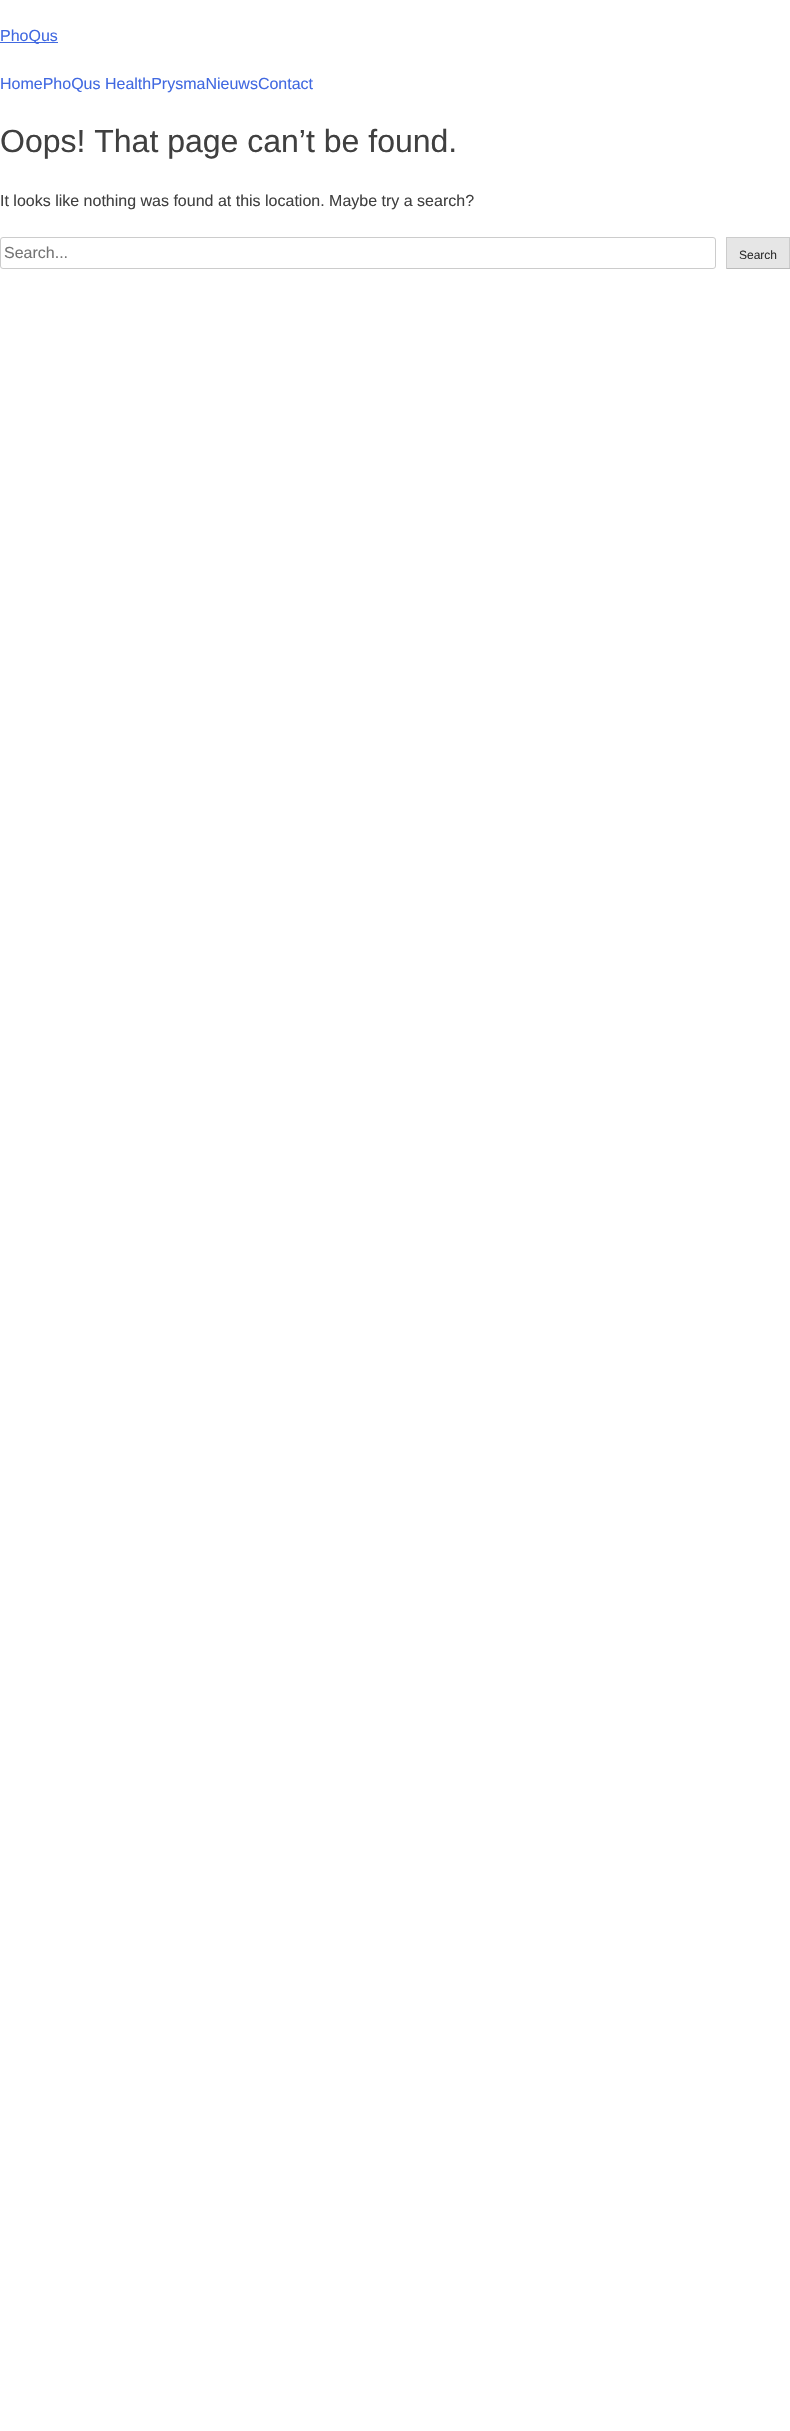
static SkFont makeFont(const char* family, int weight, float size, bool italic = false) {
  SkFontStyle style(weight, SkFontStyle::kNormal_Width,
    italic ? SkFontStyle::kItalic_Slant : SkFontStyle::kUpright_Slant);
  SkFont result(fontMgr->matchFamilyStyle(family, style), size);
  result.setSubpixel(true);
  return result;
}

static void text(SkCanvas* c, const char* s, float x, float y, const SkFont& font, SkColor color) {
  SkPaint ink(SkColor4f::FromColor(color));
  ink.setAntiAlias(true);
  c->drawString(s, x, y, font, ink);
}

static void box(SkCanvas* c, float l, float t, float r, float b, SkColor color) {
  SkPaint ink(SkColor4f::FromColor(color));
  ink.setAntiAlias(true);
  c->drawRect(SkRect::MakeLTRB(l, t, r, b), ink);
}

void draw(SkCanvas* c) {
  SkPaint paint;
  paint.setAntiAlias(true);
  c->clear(0xffffffff);
  box(c, 0, 42, 58, 43, 0xff4169e1);
  SkFont face1 = makeFont("Liberation Sans", 400, 16);
  text(c, "PhoQus", 0, 41, face1, 0xff4169e1);
  text(c, "HomePhoQus HealthPrysmaNieuwsContact", 0, 89, face1, 0xff4169e1);
  SkFont face2 = makeFont("Liberation Sans", 400, 32);
  text(c, "Oops! That page can’t be found.", 0, 152, face2, 0xff404040);
  text(c, "It looks like nothing was found at this location. Maybe try a search?", 0, 206, face1, 0xff404040);
  paint.setStyle(SkPaint::kStroke_Style);
  paint.setStrokeWidth(1);
  paint.setColor(0xffcccccc);
  c->drawRoundRect(SkRect::MakeLTRB(0.5f, 237.5f, 715.5f, 268.5f), 2.5f, 2.5f, paint);
  text(c, "Search...", 4, 258, face1, 0xff757575);
  box(c, 727, 238, 789, 268, 0xffe6e6e6);
  box(c, 726, 237, 790, 238, 0xffcccccc);
  box(c, 789, 237, 790, 269, 0xffcccccc);
  box(c, 726, 268, 790, 269, 0xffbbbbbb);
  box(c, 726, 237, 727, 269, 0xffcccccc);
  SkFont face3 = makeFont("Liberation Sans", 400, 12);
  text(c, "Search", 739, 259, face3, 0xff2e2e2e);
}
